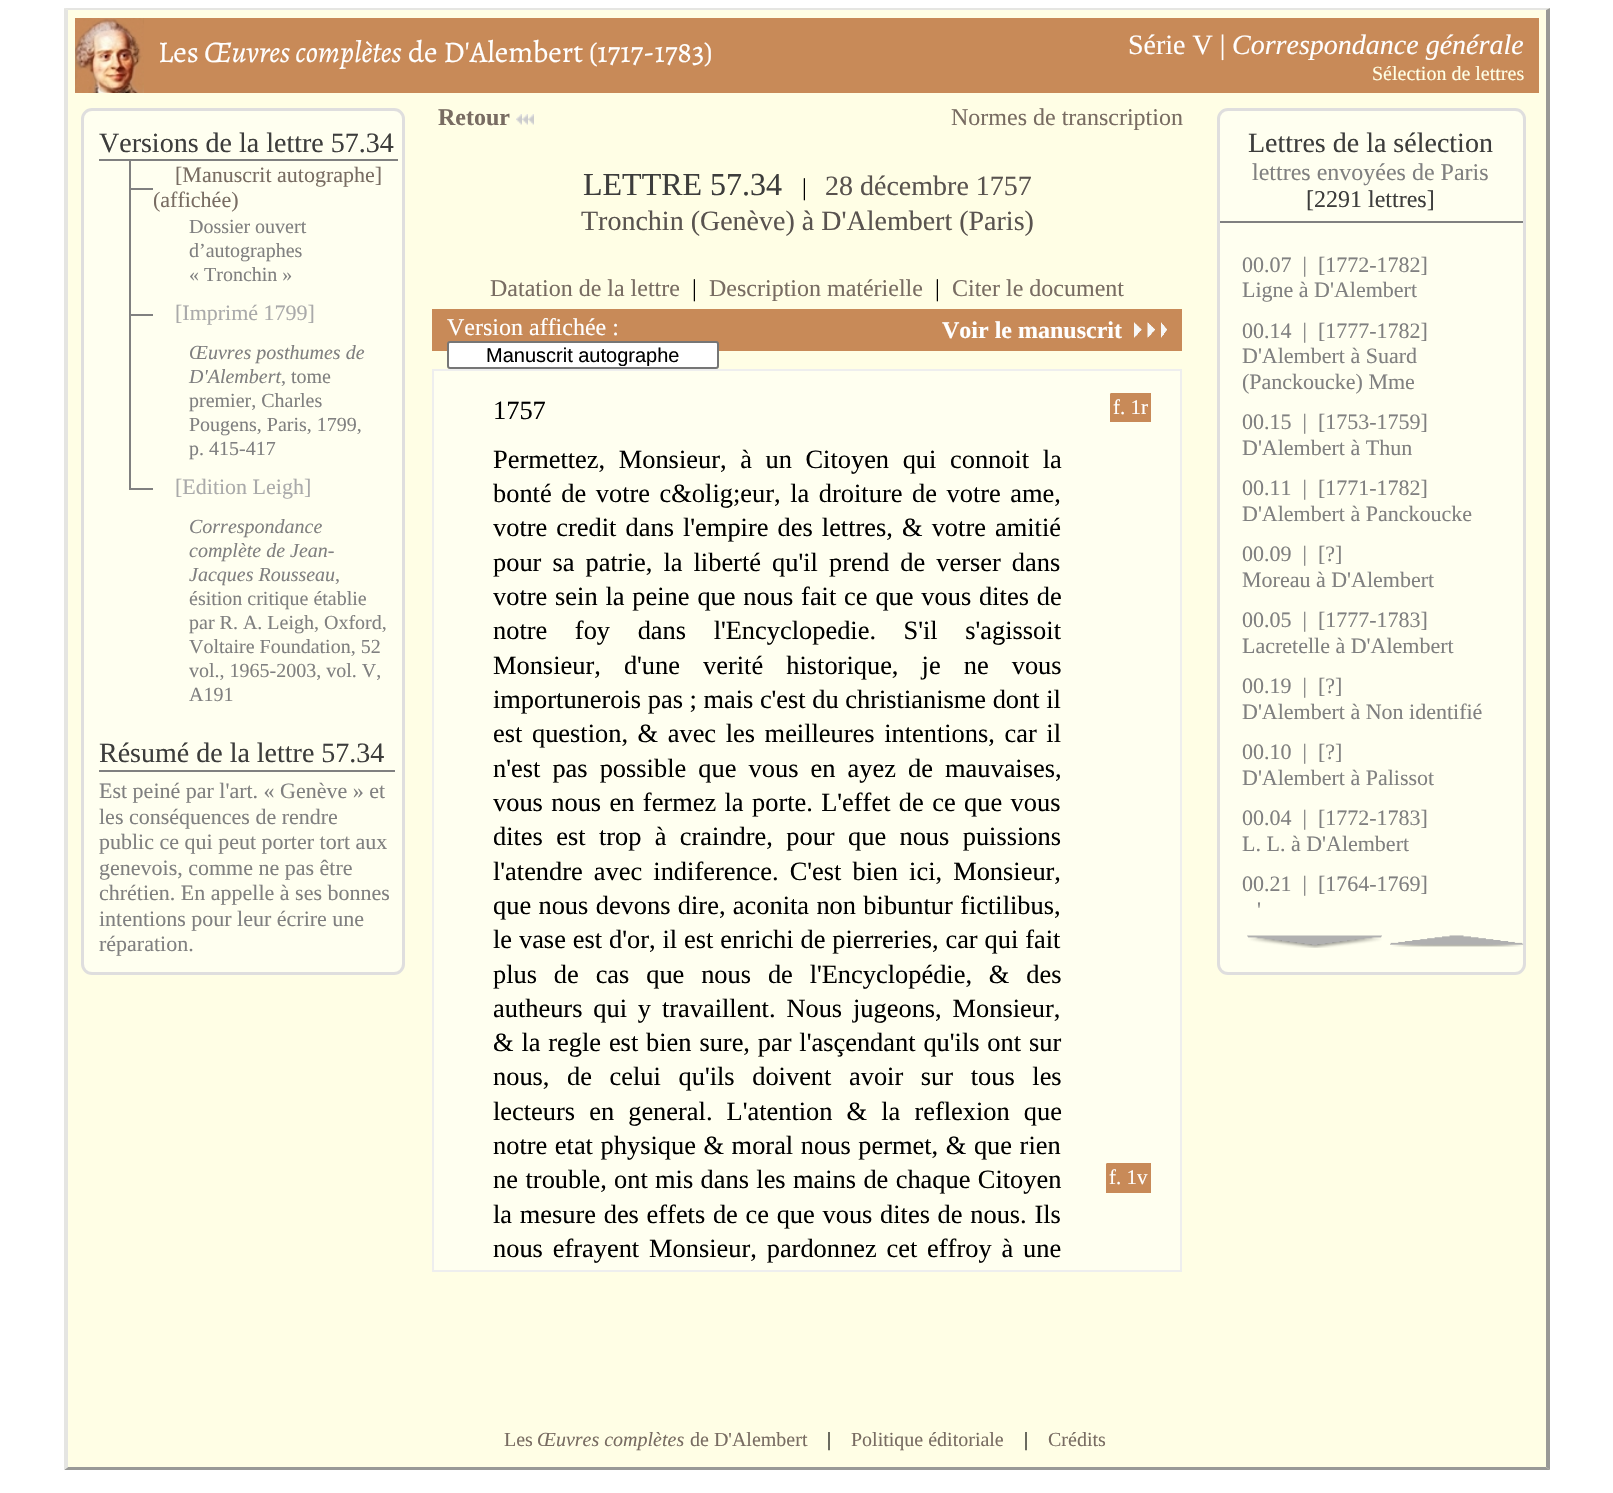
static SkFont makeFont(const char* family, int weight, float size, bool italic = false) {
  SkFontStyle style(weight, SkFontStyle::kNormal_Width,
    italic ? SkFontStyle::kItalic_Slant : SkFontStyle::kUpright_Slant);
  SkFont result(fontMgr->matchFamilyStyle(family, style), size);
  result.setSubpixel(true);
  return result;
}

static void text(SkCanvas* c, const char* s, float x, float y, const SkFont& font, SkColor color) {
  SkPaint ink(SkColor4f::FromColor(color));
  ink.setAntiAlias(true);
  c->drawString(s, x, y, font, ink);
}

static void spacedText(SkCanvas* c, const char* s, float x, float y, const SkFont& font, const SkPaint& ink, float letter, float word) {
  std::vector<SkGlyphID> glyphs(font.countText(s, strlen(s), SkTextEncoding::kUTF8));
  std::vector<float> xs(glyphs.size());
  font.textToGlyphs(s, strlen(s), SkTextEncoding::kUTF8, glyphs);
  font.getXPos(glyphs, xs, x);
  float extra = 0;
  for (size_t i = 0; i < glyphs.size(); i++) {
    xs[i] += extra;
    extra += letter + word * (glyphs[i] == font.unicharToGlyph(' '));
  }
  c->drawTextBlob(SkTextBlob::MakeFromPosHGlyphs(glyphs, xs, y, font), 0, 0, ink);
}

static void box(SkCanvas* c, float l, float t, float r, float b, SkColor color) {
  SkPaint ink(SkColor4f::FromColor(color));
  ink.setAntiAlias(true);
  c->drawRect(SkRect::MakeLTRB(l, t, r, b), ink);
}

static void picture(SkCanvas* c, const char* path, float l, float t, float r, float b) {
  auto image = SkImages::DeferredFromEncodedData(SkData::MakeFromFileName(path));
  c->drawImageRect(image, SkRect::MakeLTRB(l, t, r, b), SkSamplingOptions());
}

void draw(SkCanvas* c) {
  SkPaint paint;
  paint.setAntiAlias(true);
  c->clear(0xffffffff);
  box(c, 65, 8, 1550, 1470, 0xfffffee5);
  paint.setColor(0xffe5e5e2);
  c->drawPath(SkPathBuilder().moveTo(64, 8).lineTo(1550, 8).lineTo(1546, 10).lineTo(68, 10).close().detach(), paint);
  paint.setColor(0xff999997);
  c->drawPath(SkPathBuilder().moveTo(1550, 8).lineTo(1550, 1470).lineTo(1546, 1467).lineTo(1546, 10).close().detach(), paint);
  c->drawPath(SkPathBuilder().moveTo(1550, 1470).lineTo(64, 1470).lineTo(68, 1467).lineTo(1546, 1467).close().detach(), paint);
  paint.setColor(0xffe5e5e2);
  c->drawPath(SkPathBuilder().moveTo(64, 1470).lineTo(64, 8).lineTo(68, 10).lineTo(68, 1467).close().detach(), paint);
  box(c, 144, 18, 1539, 93, 0xffc88a58);
  picture(c, "img_01.png", 75, 18, 144, 93);
  SkFont face1 = makeFont("Alegreya", 400, 30);
  text(c, "Les", 158, 62, face1, 0xffffffff);
  SkFont face2 = makeFont("Alegreya", 400, 30, true);
  text(c, "Œuvres complètes", 204, 62, face2, 0xffffffff);
  text(c, "de D'Alembert (1717-1783)", 408, 62, face1, 0xffffffff);
  SkFont face3 = makeFont("Liberation Serif", 400, 28);
  text(c, "Série V |", 1128, 54, face3, 0xffffffff);
  SkFont face4 = makeFont("Liberation Serif", 400, 28, true);
  text(c, "Correspondance générale", 1232, 54, face4, 0xffffffff);
  SkFont face5 = makeFont("Liberation Serif", 400, 20);
  text(c, "Sélection de lettres", 1372, 80, face5, 0xffffffe5);
  paint.setColor(0xfffffff0);
  c->drawRoundRect(SkRect::MakeLTRB(82.5f, 109.5f, 403.5f, 973.5f), 9.5f, 9.5f, paint);
  paint.setStyle(SkPaint::kStroke_Style);
  paint.setStrokeWidth(3);
  paint.setColor(0xffdfdede);
  c->drawRoundRect(SkRect::MakeLTRB(82.5f, 109.5f, 403.5f, 973.5f), 9.5f, 9.5f, paint);
  box(c, 99, 159, 398, 161, 0xff808080);
  text(c, "Versions de la lettre 57.34", 99, 152, face3, 0xff3d3d3c);
  box(c, 129, 188, 153, 190, 0xff808080);
  box(c, 129, 161, 131, 287, 0xff808080);
  SkFont face6 = makeFont("Liberation Serif", 400, 22);
  text(c, "[Manuscrit autographe]", 175, 182, face6, 0xff786c62);
  text(c, "(affichée)", 153, 207, face6, 0xff786c62);
  text(c, "Dossier ouvert", 189, 233, face5, 0xff808080);
  text(c, "d’autographes", 189, 257, face5, 0xff808080);
  text(c, "« Tronchin »", 189, 281, face5, 0xff808080);
  box(c, 129, 314, 153, 316, 0xff808080);
  box(c, 129, 287, 131, 461, 0xff808080);
  text(c, "[Imprimé 1799]", 175, 320, face6, 0xffaaaaaa);
  SkFont face7 = makeFont("Liberation Serif", 400, 20, true);
  text(c, "Œuvres posthumes de", 189, 359, face7, 0xff808080);
  text(c, "D'Alembert", 189, 383, face7, 0xff808080);
  text(c, ", tome", 281, 383, face5, 0xff808080);
  text(c, "premier, Charles", 189, 407, face5, 0xff808080);
  text(c, "Pougens, Paris, 1799,", 189, 431, face5, 0xff808080);
  text(c, "p. 415-417", 189, 455, face5, 0xff808080);
  box(c, 129, 488, 153, 490, 0xff808080);
  box(c, 129, 461, 131, 489, 0xff808080);
  text(c, "[Edition Leigh]", 175, 494, face6, 0xffaaaaaa);
  text(c, "Correspondance", 189, 533, face7, 0xff808080);
  text(c, "complète de Jean-", 189, 557, face7, 0xff808080);
  text(c, "Jacques Rousseau", 189, 581, face7, 0xff808080);
  text(c, ",", 335, 581, face5, 0xff808080);
  text(c, "ésition critique établie", 189, 605, face5, 0xff808080);
  text(c, "par R. A. Leigh, Oxford,", 189, 629, face5, 0xff808080);
  text(c, "Voltaire Foundation, 52", 189, 653, face5, 0xff808080);
  text(c, "vol., 1965-2003, vol. V,", 189, 677, face5, 0xff808080);
  text(c, "A191", 189, 701, face5, 0xff808080);
  box(c, 99, 770, 395, 772, 0xff808080);
  text(c, "Résumé de la lettre 57.34", 99, 762, face3, 0xff3d3d3c);
  text(c, "Est peiné par l'art. « Genève » et", 99, 798, face6, 0xff808080);
  text(c, "les conséquences de rendre", 99, 824, face6, 0xff808080);
  text(c, "public ce qui peut porter tort aux", 99, 849, face6, 0xff808080);
  text(c, "genevois, comme ne pas être", 99, 875, face6, 0xff808080);
  text(c, "chrétien. En appelle à ses bonnes", 99, 900, face6, 0xff808080);
  text(c, "intentions pour leur écrire une", 99, 926, face6, 0xff808080);
  text(c, "réparation.", 99, 951, face6, 0xff808080);
  SkFont face8 = makeFont("Liberation Serif", 700, 24);
  text(c, "Retour", 438, 125, face8, 0xff786c62);
  picture(c, "img_02.png", 516, 114, 522, 125);
  picture(c, "img_03.png", 522, 114, 528, 125);
  picture(c, "img_03.png", 528, 114, 534, 125);
  SkFont face9 = makeFont("Liberation Serif", 400, 24);
  text(c, "Normes de transcription", 951, 125, face9, 0xff786c62);
  SkFont face10 = makeFont("Liberation Serif", 400, 32);
  text(c, "LETTRE 57.34", 583, 195, face10, 0xff3d3d3c);
  text(c, "|", 802, 195, face9, 0xff000000);
  text(c, "28 décembre 1757", 825, 195, face3, 0xff59534f);
  text(c, "Tronchin (Genève) à D'Alembert (Paris)", 581, 230, face3, 0xff59534f);
  text(c, "Datation de la lettre", 490, 296, face9, 0xff786c62);
  text(c, "|", 692, 296, face9, 0xff000000);
  text(c, "Description matérielle", 709, 296, face9, 0xff786c62);
  text(c, "|", 935, 296, face9, 0xff000000);
  text(c, "Citer le document", 952, 296, face9, 0xff786c62);
  box(c, 432, 309, 1182, 351, 0xffc88a58);
  text(c, "Version affichée :", 447, 335, face9, 0xffffffff);
  paint.setStyle(SkPaint::kFill_Style);
  paint.setColor(0xffffffff);
  c->drawRoundRect(SkRect::MakeLTRB(448, 342, 718, 368), 2, 2, paint);
  paint.setStyle(SkPaint::kStroke_Style);
  paint.setStrokeWidth(2);
  paint.setColor(0xff767676);
  c->drawRoundRect(SkRect::MakeLTRB(448, 342, 718, 368), 2, 2, paint);
  c->save();
  c->clipRect(SkRect::MakeLTRB(450, 344, 716, 366));
  SkFont face11 = makeFont("Liberation Sans", 400, 20);
  text(c, "Manuscrit autographe", 486, 362, face11, 0xff000000);
  c->restore();
  text(c, "Voir le manuscrit", 942, 338, face8, 0xffffffff);
  picture(c, "img_04.png", 1134, 322, 1142, 338);
  picture(c, "img_05.png", 1147, 322, 1155, 338);
  picture(c, "img_06.png", 1161, 322, 1167, 338);
  paint.setStyle(SkPaint::kFill_Style);
  paint.setColor(0xfffffff0);
  c->drawRect(SkRect::MakeLTRB(433, 370, 1181, 1271), paint);
  paint.setStyle(SkPaint::kStroke_Style);
  paint.setColor(0xffeeeeee);
  c->drawRect(SkRect::MakeLTRB(433, 370, 1181, 1271), paint);
  SkFont face12 = makeFont("Liberation Serif", 400, 26.4f);
  text(c, "1757", 493, 419, face12, 0xff000000);
  paint.setStyle(SkPaint::kFill_Style);
  paint.setColor(0xffc88a58);
  c->drawPath(SkPathBuilder().moveTo(1111.5f, 393).lineTo(1151, 393).lineTo(1151, 422).lineTo(1110, 422).lineTo(1110, 394.5f).cubicTo(1110, 393.5f, 1110.5f, 393, 1111.5f, 393).close().detach(), paint);
  SkFont face13 = makeFont("Liberation Serif", 400, 21);
  text(c, "f. 1r", 1113, 414, face13, 0xffffffff);
  paint.setColor(0xff000000);
  spacedText(c, "Permettez, Monsieur, à un Citoyen qui connoit la", 493, 468, face12, paint, 0, 7);
  spacedText(c, "bonté de votre c&olig;eur, la droiture de votre ame,", 493, 502, face12, paint, 0, 3);
  spacedText(c, "votre credit dans l'empire des lettres, & votre amitié", 493, 536, face12, paint, 0, 2.5f);
  spacedText(c, "pour sa patrie, la liberté qu'il prend de verser dans", 493, 571, face12, paint, 0, 4.5f);
  spacedText(c, "votre sein la peine que nous fait ce que vous dites de", 493, 605, face12, paint, 0, 1.25f);
  spacedText(c, "notre foy dans l'Encyclopedie. S'il s'agissoit", 493, 639, face12, paint, 0, 21);
  spacedText(c, "Monsieur, d'une verité historique, je ne vous", 493, 674, face12, paint, 0, 16.5f);
  text(c, "importunerois pas ; mais c'est du christianisme dont il", 493, 708, face12, 0xff000000);
  spacedText(c, "est question, & avec les meilleures intentions, car il", 493, 742, face12, paint, 0, 3);
  spacedText(c, "n'est pas possible que vous en ayez de mauvaises,", 493, 777, face12, paint, 0, 5.5f);
  spacedText(c, "vous nous en fermez la porte. L'effet de ce que vous", 493, 811, face12, paint, 0, 1.8f);
  spacedText(c, "dites est trop à craindre, pour que nous puissions", 493, 845, face12, paint, 0, 6.75f);
  spacedText(c, "l'atendre avec indiference. C'est bien ici, Monsieur,", 493, 880, face12, paint, 0, 4.5f);
  spacedText(c, "que nous devons dire, aconita non bibuntur fictilibus,", 493, 914, face12, paint, 0, 0.75f);
  spacedText(c, "le vase est d'or, il est enrichi de pierreries, car qui fait", 493, 948, face12, paint, 0, 0.3f);
  spacedText(c, "plus de cas que nous de l'Encyclopédie, & des", 493, 983, face12, paint, 0, 10.25f);
  spacedText(c, "autheurs qui y travaillent. Nous jugeons, Monsieur,", 493, 1017, face12, paint, 0, 4.25f);
  spacedText(c, "& la regle est bien sure, par l'asçendant qu'ils ont sur", 493, 1051, face12, paint, 0, 1.25f);
  spacedText(c, "nous, de celui qu'ils doivent avoir sur tous les", 493, 1085, face12, paint, 0, 11);
  spacedText(c, "lecteurs en general. L'atention & la reflexion que", 493, 1120, face12, paint, 0, 7.5f);
  spacedText(c, "notre etat physique & moral nous permet, & que rien", 493, 1154, face12, paint, 0, 1);
  spacedText(c, "ne trouble,", 493, 1188, face12, paint, 0, 1);
  spacedText(c, "ont mis dans les mains de chaque Citoyen", 614, 1188, face12, paint, 0, 0.75f);
  paint.setColor(0xffc88a58);
  c->drawPath(SkPathBuilder().moveTo(1107.5f, 1163).lineTo(1151, 1163).lineTo(1151, 1193).lineTo(1106, 1193).lineTo(1106, 1164.5f).cubicTo(1106, 1163.5f, 1106.5f, 1163, 1107.5f, 1163).close().detach(), paint);
  text(c, "f. 1v", 1109, 1184, face13, 0xffffffff);
  paint.setColor(0xff000000);
  spacedText(c, "la mesure des effets de ce que vous dites de nous. Ils", 493, 1223, face12, paint, 0, 1.1f);
  spacedText(c, "nous efrayent Monsieur, pardonnez cet effroy à une", 493, 1257, face12, paint, 0, 3.25f);
  paint.setColor(0xfffffff0);
  c->drawRoundRect(SkRect::MakeLTRB(1218.5f, 109.5f, 1524.5f, 973.5f), 9.5f, 9.5f, paint);
  paint.setStyle(SkPaint::kStroke_Style);
  paint.setStrokeWidth(3);
  paint.setColor(0xffdfdede);
  c->drawRoundRect(SkRect::MakeLTRB(1218.5f, 109.5f, 1524.5f, 973.5f), 9.5f, 9.5f, paint);
  box(c, 1220, 221, 1523, 223, 0xff808080);
  text(c, "Lettres de la sélection", 1248, 152, face3, 0xff3d3d3c);
  text(c, "lettres envoyées de Paris", 1252, 180, face9, 0xff808080);
  text(c, "[2291 lettres]", 1306, 207, face9, 0xff3d3d3c);
  text(c, "00.07  |  [1772-1782]", 1242, 272, face6, 0xff808080);
  text(c, "Ligne à D'Alembert", 1242, 297, face6, 0xff808080);
  text(c, "00.14  |  [1777-1782]", 1242, 338, face6, 0xff808080);
  text(c, "D'Alembert à Suard", 1242, 363, face6, 0xff808080);
  text(c, "(Panckoucke) Mme", 1242, 389, face6, 0xff808080);
  text(c, "00.15  |  [1753-1759]", 1242, 429, face6, 0xff808080);
  text(c, "D'Alembert à Thun", 1242, 455, face6, 0xff808080);
  text(c, "00.11  |  [1771-1782]", 1242, 495, face6, 0xff808080);
  text(c, "D'Alembert à Panckoucke", 1242, 521, face6, 0xff808080);
  text(c, "00.09  |  [?]", 1242, 561, face6, 0xff808080);
  text(c, "Moreau à D'Alembert", 1242, 587, face6, 0xff808080);
  text(c, "00.05  |  [1777-1783]", 1242, 627, face6, 0xff808080);
  text(c, "Lacretelle à D'Alembert", 1242, 653, face6, 0xff808080);
  text(c, "00.19  |  [?]", 1242, 693, face6, 0xff808080);
  text(c, "D'Alembert à Non identifié", 1242, 719, face6, 0xff808080);
  text(c, "00.10  |  [?]", 1242, 759, face6, 0xff808080);
  text(c, "D'Alembert à Palissot", 1242, 785, face6, 0xff808080);
  text(c, "00.04  |  [1772-1783]", 1242, 825, face6, 0xff808080);
  text(c, "L. L. à D'Alembert", 1242, 851, face6, 0xff808080);
  text(c, "00.21  |  [1764-1769]", 1242, 891, face6, 0xff808080);
  text(c, "'", 1257, 917, face6, 0xff808080);
  picture(c, "img_07.png", 1247, 935, 1382, 948);
  picture(c, "img_08.png", 1390, 935, 1524, 947);
  text(c, "Les", 504, 1446, face5, 0xff786c62);
  text(c, "Œuvres complètes", 537, 1446, face7, 0xff786c62);
  text(c, "de D'Alembert", 690, 1446, face5, 0xff786c62);
  text(c, "|", 827, 1446, face5, 0xff000000);
  text(c, "Politique éditoriale", 851, 1446, face5, 0xff786c62);
  text(c, "|", 1024, 1446, face5, 0xff000000);
  text(c, "Crédits", 1048, 1446, face5, 0xff786c62);
}
